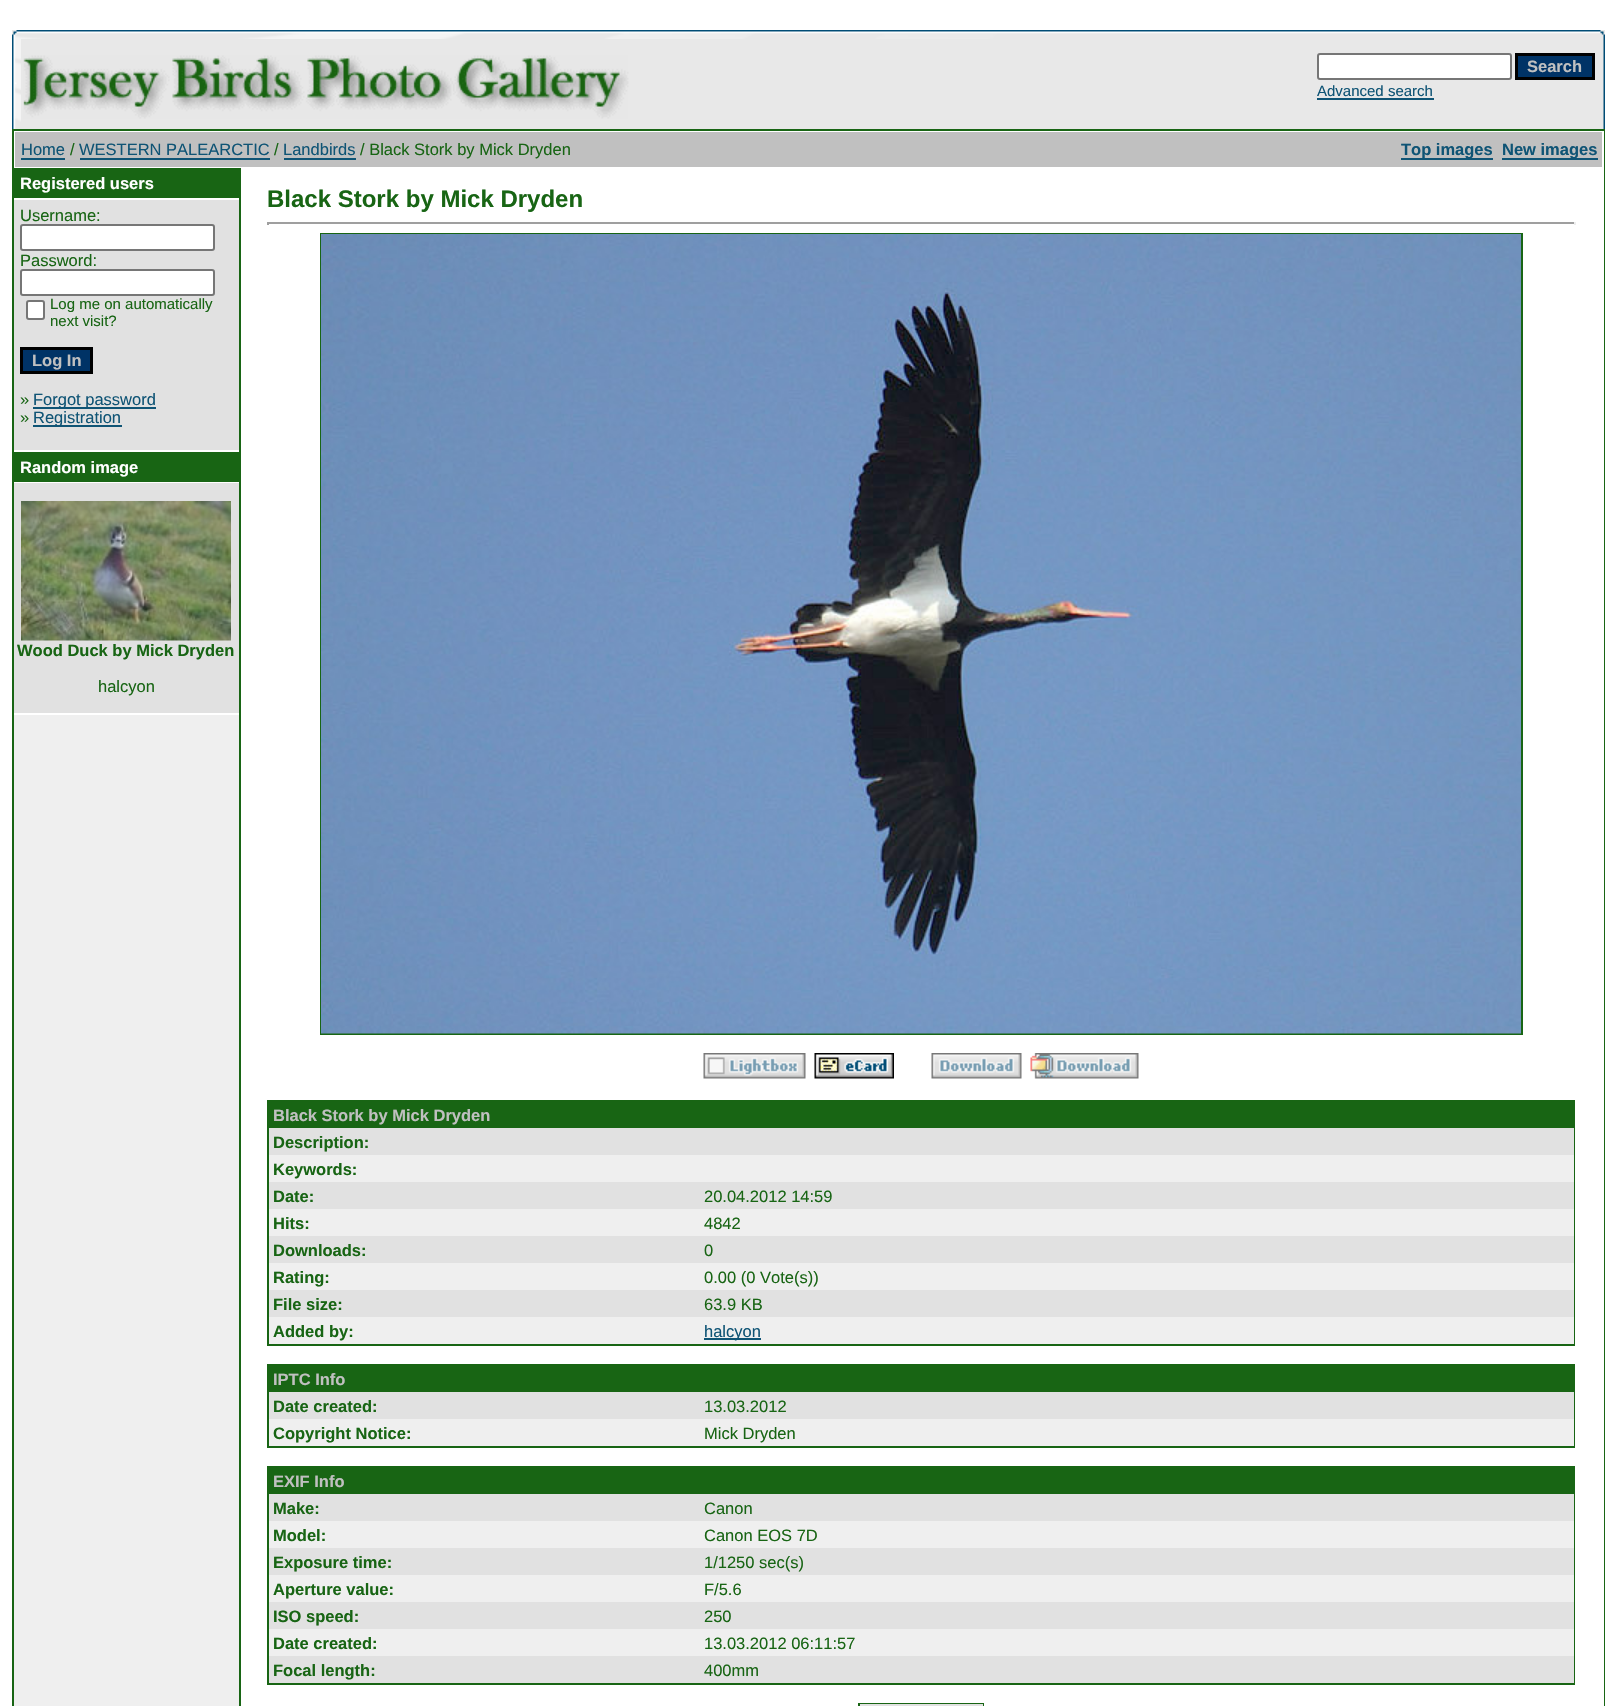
static SkFont makeFont(const char* family, int weight, float size, bool italic = false) {
  SkFontStyle style(weight, SkFontStyle::kNormal_Width,
    italic ? SkFontStyle::kItalic_Slant : SkFontStyle::kUpright_Slant);
  SkFont result(fontMgr->matchFamilyStyle(family, style), size);
  result.setSubpixel(true);
  return result;
}

static void text(SkCanvas* c, const char* s, float x, float y, const SkFont& font, SkColor color) {
  SkPaint ink(SkColor4f::FromColor(color));
  ink.setAntiAlias(true);
  c->drawString(s, x, y, font, ink);
}

static void box(SkCanvas* c, float l, float t, float r, float b, SkColor color) {
  SkPaint ink(SkColor4f::FromColor(color));
  ink.setAntiAlias(true);
  c->drawRect(SkRect::MakeLTRB(l, t, r, b), ink);
}

static void picture(SkCanvas* c, const char* path, float l, float t, float r, float b) {
  auto image = SkImages::DeferredFromEncodedData(SkData::MakeFromFileName(path));
  c->drawImageRect(image, SkRect::MakeLTRB(l, t, r, b), SkSamplingOptions());
}

void draw(SkCanvas* c) {
  SkPaint paint;
  paint.setAntiAlias(true);
  c->clear(0xffffffff);
  box(c, 12, 30, 1605, 129, 0xffe8e8e8);
  picture(c, "img_01.png", 12, 30, 21, 39);
  picture(c, "img_02.png", 21, 30, 1596, 39);
  picture(c, "img_03.png", 1596, 30, 1605, 39);
  picture(c, "img_04.png", 12, 39, 21, 129);
  picture(c, "img_05.png", 23, 55, 629, 119);
  paint.setColor(0xffffffff);
  c->drawRoundRect(SkRect::MakeLTRB(1318, 54, 1511, 79), 2, 2, paint);
  paint.setStyle(SkPaint::kStroke_Style);
  paint.setStrokeWidth(2);
  paint.setColor(0xff767676);
  c->drawRoundRect(SkRect::MakeLTRB(1318, 54, 1511, 79), 2, 2, paint);
  paint.setStyle(SkPaint::kFill_Style);
  paint.setColor(0xff003366);
  c->drawRect(SkRect::MakeLTRB(1516.5f, 54.5f, 1593.5f, 78.5f), paint);
  paint.setStyle(SkPaint::kStroke_Style);
  paint.setStrokeWidth(3);
  paint.setColor(0xff000000);
  c->drawRect(SkRect::MakeLTRB(1516.5f, 54.5f, 1593.5f, 78.5f), paint);
  SkFont face1 = makeFont("Liberation Sans", 700, 16.5f);
  text(c, "Search", 1527, 72, face1, 0xffc0c0c0);
  SkFont face2 = makeFont("Liberation Sans", 400, 15);
  text(c, "Advanced search", 1317, 96, face2, 0xff0f5475);
  box(c, 1317, 98, 1434, 100, 0xff0f5475);
  picture(c, "img_06.png", 1603, 39, 1605, 129);
  box(c, 12, 129, 1605, 1706, 0xff186514);
  box(c, 14, 131, 1604, 1706, 0xffffffff);
  box(c, 15, 132, 1602, 167, 0xffc0c0c0);
  SkFont face3 = makeFont("Liberation Sans", 400, 16.5f);
  text(c, "Home", 21, 155, face3, 0xff0f5475);
  box(c, 21, 158, 65, 160, 0xff0f5475);
  text(c, "/", 70, 155, face3, 0xff186514);
  text(c, "WESTERN PALEARCTIC", 79, 155, face3, 0xff0f5475);
  box(c, 80, 158, 270, 160, 0xff0f5475);
  text(c, "/", 274, 155, face3, 0xff186514);
  text(c, "Landbirds", 283, 155, face3, 0xff0f5475);
  box(c, 284, 158, 356, 160, 0xff0f5475);
  text(c, "/ Black Stork by Mick Dryden", 360, 155, face3, 0xff186514);
  box(c, 1401, 158, 1493, 160, 0xff0f5475);
  text(c, "Top images", 1401, 155, face1, 0xff0f5475);
  box(c, 1502, 158, 1598, 160, 0xff0f5475);
  text(c, "New images", 1502, 155, face1, 0xff0f5475);
  box(c, 14, 715, 239, 1706, 0xffefefef);
  box(c, 14, 168, 239, 198, 0xff186514);
  text(c, "Registered users", 20, 189, face1, 0xffffffff);
  box(c, 14, 200, 239, 450, 0xffe1e1e1);
  text(c, "Username:", 20, 221, face3, 0xff186514);
  paint.setStyle(SkPaint::kFill_Style);
  paint.setColor(0xffffffff);
  c->drawRoundRect(SkRect::MakeLTRB(21, 225, 214, 250), 2, 2, paint);
  paint.setStyle(SkPaint::kStroke_Style);
  paint.setStrokeWidth(2);
  paint.setColor(0xff767676);
  c->drawRoundRect(SkRect::MakeLTRB(21, 225, 214, 250), 2, 2, paint);
  text(c, "Password:", 20, 266, face3, 0xff186514);
  paint.setStyle(SkPaint::kFill_Style);
  paint.setColor(0xffffffff);
  c->drawRoundRect(SkRect::MakeLTRB(21, 270, 214, 295), 2, 2, paint);
  paint.setStyle(SkPaint::kStroke_Style);
  paint.setColor(0xff767676);
  c->drawRoundRect(SkRect::MakeLTRB(21, 270, 214, 295), 2, 2, paint);
  paint.setStyle(SkPaint::kFill_Style);
  paint.setColor(0xffffffff);
  c->drawRoundRect(SkRect::MakeLTRB(27, 301, 44, 319), 2, 2, paint);
  paint.setStyle(SkPaint::kStroke_Style);
  paint.setColor(0xff767676);
  c->drawRoundRect(SkRect::MakeLTRB(27, 301, 44, 319), 2, 2, paint);
  text(c, "Log me on automatically", 50, 309, face2, 0xff186514);
  text(c, "next visit?", 50, 326, face2, 0xff186514);
  paint.setStyle(SkPaint::kFill_Style);
  paint.setColor(0xff003366);
  c->drawRect(SkRect::MakeLTRB(21.5f, 348.5f, 91.5f, 372.5f), paint);
  paint.setStyle(SkPaint::kStroke_Style);
  paint.setStrokeWidth(3);
  paint.setColor(0xff000000);
  c->drawRect(SkRect::MakeLTRB(21.5f, 348.5f, 91.5f, 372.5f), paint);
  text(c, "Log In", 32, 366, face1, 0xffc0c0c0);
  text(c, "»", 20, 405, face3, 0xff186514);
  box(c, 33, 407, 156, 409, 0xff0f5475);
  text(c, "Forgot password", 33, 405, face3, 0xff0f5475);
  text(c, "»", 20, 423, face3, 0xff186514);
  box(c, 33, 425, 122, 427, 0xff0f5475);
  text(c, "Registration", 33, 423, face3, 0xff0f5475);
  box(c, 14, 452, 239, 482, 0xff186514);
  text(c, "Random image", 20, 473, face1, 0xffffffff);
  box(c, 14, 483, 239, 713, 0xffe1e1e1);
  picture(c, "img_07.png", 21, 501, 231, 641);
  text(c, "Wood Duck by Mick Dryden", 17, 656, face1, 0xff186514);
  text(c, "halcyon", 98, 692, face3, 0xff186514);
  box(c, 239, 168, 241, 1706, 0xff186514);
  SkFont face4 = makeFont("Liberation Sans", 700, 24);
  text(c, "Black Stork by Mick Dryden", 267, 207, face4, 0xff186514);
  box(c, 267, 222, 1575, 224, 0xff9f9f9f);
  box(c, 1574, 222, 1576, 225, 0xffeeeeee);
  box(c, 267, 222, 269, 225, 0xff9f9f9f);
  paint.setStrokeWidth(2);
  paint.setColor(0xff186514);
  c->drawRect(SkRect::MakeLTRB(321, 234, 1522, 1034), paint);
  picture(c, "img_08.png", 321, 234, 1521, 1034);
  picture(c, "img_09.png", 703, 1053, 806, 1079);
  picture(c, "img_10.png", 814, 1053, 894, 1079);
  picture(c, "img_11.png", 931, 1053, 1022, 1079);
  picture(c, "img_12.png", 1030, 1053, 1139, 1079);
  box(c, 267, 1100, 1575, 1346, 0xff186514);
  text(c, "Black Stork by Mick Dryden", 273, 1121, face1, 0xffc0c0c0);
  box(c, 269, 1128, 1574, 1155, 0xffe1e1e1);
  text(c, "Description:", 273, 1148, face1, 0xff186514);
  box(c, 269, 1155, 1574, 1182, 0xffefefef);
  text(c, "Keywords:", 273, 1175, face1, 0xff186514);
  box(c, 269, 1182, 1574, 1209, 0xffe1e1e1);
  text(c, "Date:", 273, 1202, face1, 0xff186514);
  text(c, "20.04.2012 14:59", 704, 1202, face3, 0xff186514);
  box(c, 269, 1209, 1574, 1236, 0xffefefef);
  text(c, "Hits:", 273, 1229, face1, 0xff186514);
  text(c, "4842", 704, 1229, face3, 0xff186514);
  box(c, 269, 1236, 1574, 1263, 0xffe1e1e1);
  text(c, "Downloads:", 273, 1256, face1, 0xff186514);
  text(c, "0", 704, 1256, face3, 0xff186514);
  box(c, 269, 1263, 1574, 1290, 0xffefefef);
  text(c, "Rating:", 273, 1283, face1, 0xff186514);
  text(c, "0.00 (0 Vote(s))", 704, 1283, face3, 0xff186514);
  box(c, 269, 1290, 1574, 1317, 0xffe1e1e1);
  text(c, "File size:", 273, 1310, face1, 0xff186514);
  text(c, "63.9 KB", 704, 1310, face3, 0xff186514);
  box(c, 269, 1317, 1574, 1344, 0xffefefef);
  text(c, "Added by:", 273, 1337, face1, 0xff186514);
  box(c, 704, 1338, 761, 1340, 0xff0f5475);
  text(c, "halcyon", 704, 1337, face3, 0xff0f5475);
  box(c, 267, 1364, 1575, 1448, 0xff186514);
  text(c, "IPTC Info", 273, 1385, face1, 0xffc0c0c0);
  box(c, 269, 1392, 1574, 1419, 0xffe1e1e1);
  text(c, "Date created:", 273, 1412, face1, 0xff186514);
  text(c, "13.03.2012", 704, 1412, face3, 0xff186514);
  box(c, 269, 1419, 1574, 1446, 0xffefefef);
  text(c, "Copyright Notice:", 273, 1439, face1, 0xff186514);
  text(c, "Mick Dryden", 704, 1439, face3, 0xff186514);
  box(c, 267, 1466, 1575, 1685, 0xff186514);
  text(c, "EXIF Info", 273, 1487, face1, 0xffc0c0c0);
  box(c, 269, 1494, 1574, 1521, 0xffe1e1e1);
  text(c, "Make:", 273, 1514, face1, 0xff186514);
  text(c, "Canon", 704, 1514, face3, 0xff186514);
  box(c, 269, 1521, 1574, 1548, 0xffefefef);
  text(c, "Model:", 273, 1541, face1, 0xff186514);
  text(c, "Canon EOS 7D", 704, 1541, face3, 0xff186514);
  box(c, 269, 1548, 1574, 1575, 0xffe1e1e1);
  text(c, "Exposure time:", 273, 1568, face1, 0xff186514);
  text(c, "1/1250 sec(s)", 704, 1568, face3, 0xff186514);
  box(c, 269, 1575, 1574, 1602, 0xffefefef);
  text(c, "Aperture value:", 273, 1595, face1, 0xff186514);
  text(c, "F/5.6", 704, 1595, face3, 0xff186514);
  box(c, 269, 1602, 1574, 1629, 0xffe1e1e1);
  text(c, "ISO speed:", 273, 1622, face1, 0xff186514);
  text(c, "250", 704, 1622, face3, 0xff186514);
  box(c, 269, 1629, 1574, 1656, 0xffefefef);
  text(c, "Date created:", 273, 1649, face1, 0xff186514);
  text(c, "13.03.2012 06:11:57", 704, 1649, face3, 0xff186514);
  box(c, 269, 1656, 1574, 1683, 0xffe1e1e1);
  text(c, "Focal length:", 273, 1676, face1, 0xff186514);
  text(c, "400mm", 704, 1676, face3, 0xff186514);
  box(c, 858, 1703, 984, 1706, 0xff186514);
  box(c, 860, 1704, 983, 1706, 0xffe1e1e1);
}
